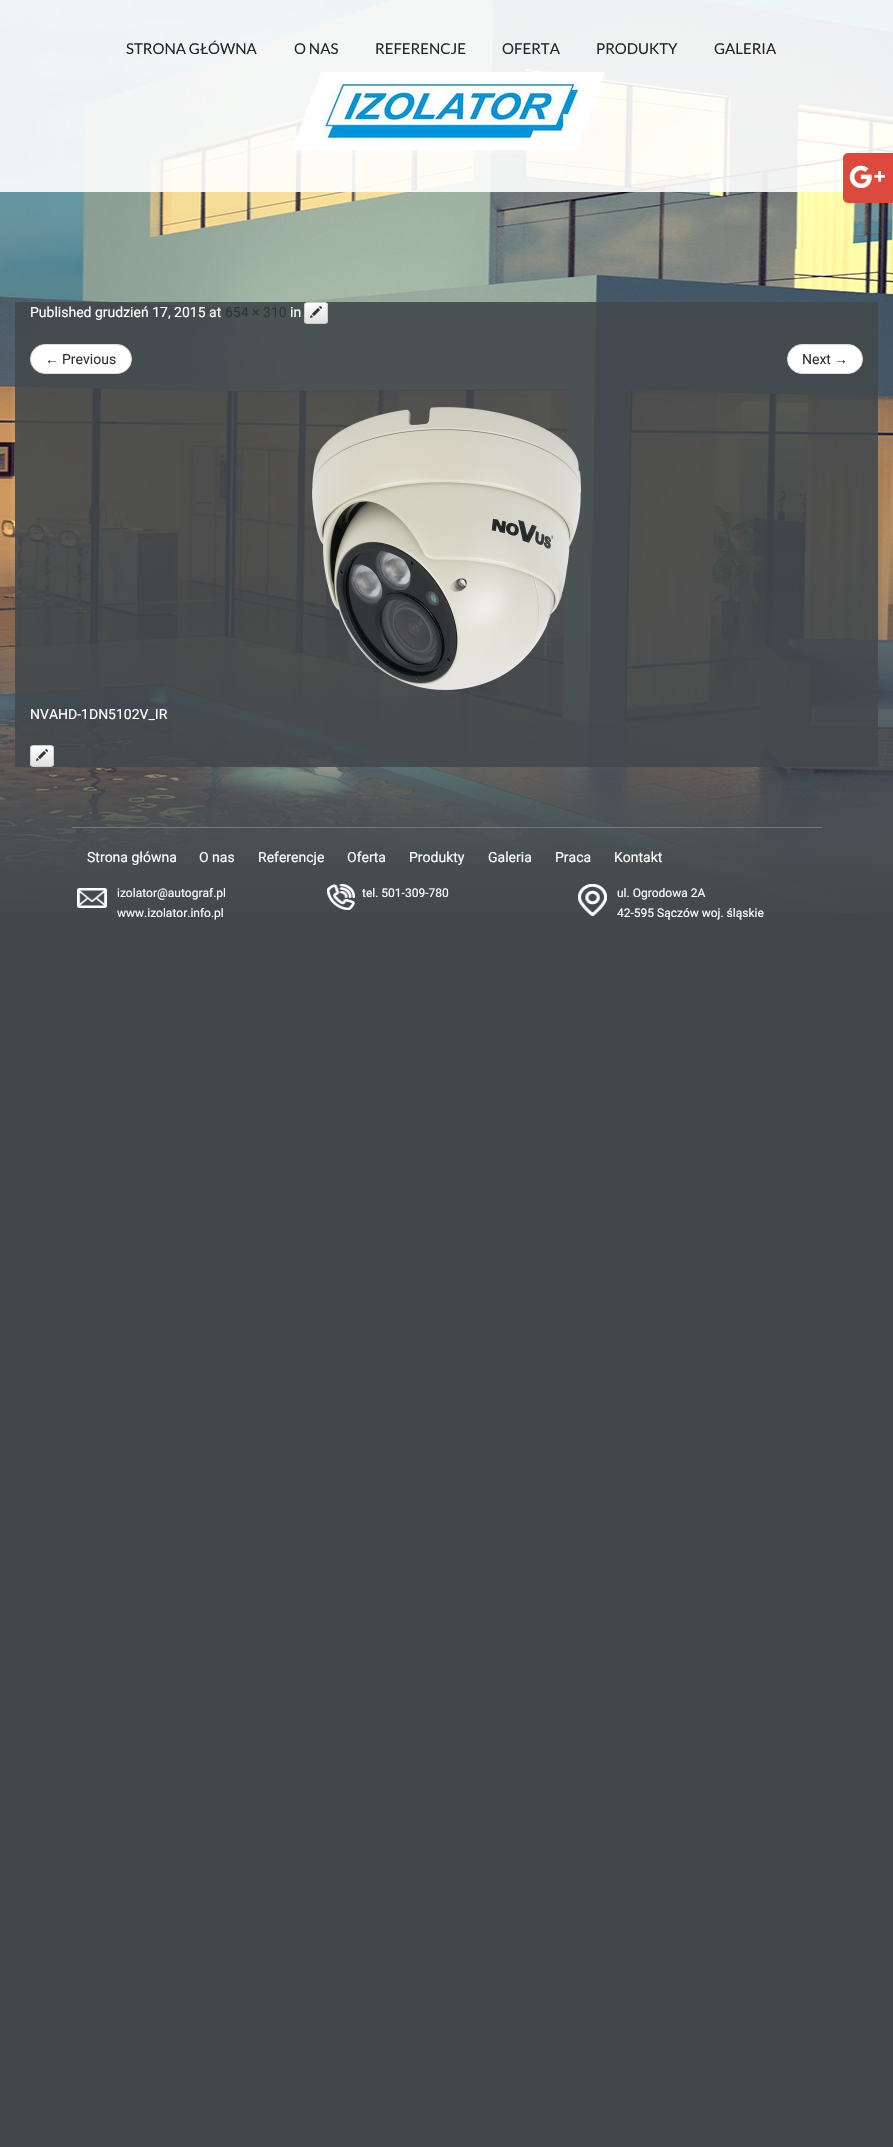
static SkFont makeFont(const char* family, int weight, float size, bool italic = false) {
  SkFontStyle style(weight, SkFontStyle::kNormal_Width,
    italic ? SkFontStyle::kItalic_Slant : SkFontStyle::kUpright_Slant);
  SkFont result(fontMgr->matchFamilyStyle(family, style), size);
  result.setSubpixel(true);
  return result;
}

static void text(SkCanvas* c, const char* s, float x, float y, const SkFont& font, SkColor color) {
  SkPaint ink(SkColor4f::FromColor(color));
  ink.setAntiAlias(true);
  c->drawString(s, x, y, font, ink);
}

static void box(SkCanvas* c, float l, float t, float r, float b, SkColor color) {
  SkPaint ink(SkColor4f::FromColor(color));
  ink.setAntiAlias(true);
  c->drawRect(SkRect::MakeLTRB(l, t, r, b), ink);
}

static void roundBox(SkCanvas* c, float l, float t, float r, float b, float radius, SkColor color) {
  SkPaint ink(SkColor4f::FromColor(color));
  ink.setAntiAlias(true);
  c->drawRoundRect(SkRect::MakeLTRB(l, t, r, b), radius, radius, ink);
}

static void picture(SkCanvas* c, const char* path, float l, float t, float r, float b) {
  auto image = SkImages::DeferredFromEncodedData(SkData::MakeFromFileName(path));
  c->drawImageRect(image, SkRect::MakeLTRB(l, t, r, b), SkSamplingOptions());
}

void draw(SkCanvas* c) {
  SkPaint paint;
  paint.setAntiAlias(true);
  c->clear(0xff42474a);
  picture(c, "img_01.png", 0, 0, 893, 913);
  box(c, 0, 0, 893, 192, 0xe6ffffff);
  SkFont face1 = makeFont("Lato", 400, 15);
  text(c, "STRONA GŁÓWNA", 126, 54, face1, 0xff272727);
  text(c, "O NAS", 294, 54, face1, 0xff272727);
  text(c, "REFERENCJE", 375, 54, face1, 0xff272727);
  text(c, "OFERTA", 502, 54, face1, 0xff272727);
  text(c, "PRODUKTY", 596, 54, face1, 0xff272727);
  text(c, "GALERIA", 714, 54, face1, 0xff272727);
  picture(c, "img_02.png", 292, 72, 605, 154);
  box(c, 15, 302, 878, 767, 0xe643484b);
  SkFont face2 = makeFont("Roboto", 400, 14);
  text(c, "Published grudzień 17, 2015 at", 30, 317, face2, 0xffffffff);
  text(c, "654 × 310", 225, 317, face2, 0xff333333);
  text(c, "in", 290, 317, face2, 0xffffffff);
  c->save();
  c->clipPath(SkPathBuilder().moveTo(307, 302).lineTo(325, 302).cubicTo(326.5f, 302, 328, 303.5f, 328, 305).lineTo(328, 321).cubicTo(328, 322.5f, 326.5f, 324, 325, 324).lineTo(307, 324).cubicTo(305.5f, 324, 304, 322.5f, 304, 321).lineTo(304, 305).cubicTo(304, 303.5f, 305.5f, 302, 307, 302).close().detach(), true);
  {
    const SkColor colors[] = {0xffffffff, 0xffe0e0e0};
    const float stops[] = {0, 1};
    const SkPoint ends[] = {{316, 303}, {316, 323}};
    paint.setShader(SkGradientShader::MakeLinear(ends, colors, stops, 2, SkTileMode::kClamp));
    paint.setAlpha(255);
  }
  c->drawRect(SkRect::MakeLTRB(304, 303, 328, 323), paint);
  c->restore();
  paint.setStyle(SkPaint::kStroke_Style);
  paint.setStrokeWidth(1);
  paint.setShader(nullptr);
  paint.setColor(0xffcccccc);
  c->drawRoundRect(SkRect::MakeLTRB(304.5f, 302.5f, 327.5f, 323.5f), 2.5f, 2.5f, paint);
  picture(c, "img_03.png", 310, 306, 322, 318);
  paint.setStyle(SkPaint::kFill_Style);
  paint.setColor(0xffffffff);
  c->drawRoundRect(SkRect::MakeLTRB(30.5f, 344.5f, 131.5f, 373.5f), 14.5f, 14.5f, paint);
  paint.setStyle(SkPaint::kStroke_Style);
  paint.setColor(0xffdddddd);
  c->drawRoundRect(SkRect::MakeLTRB(30.5f, 344.5f, 131.5f, 373.5f), 14.5f, 14.5f, paint);
  SkFont face3 = makeFont("Liberation Serif", 400, 14);
  text(c, "←", 45, 364, face3, 0xff333333);
  text(c, "Previous", 62, 364, face2, 0xff333333);
  paint.setStyle(SkPaint::kFill_Style);
  paint.setColor(0xffffffff);
  c->drawRoundRect(SkRect::MakeLTRB(787.5f, 344.5f, 862.5f, 373.5f), 14.5f, 14.5f, paint);
  paint.setStyle(SkPaint::kStroke_Style);
  paint.setColor(0xffdddddd);
  c->drawRoundRect(SkRect::MakeLTRB(787.5f, 344.5f, 862.5f, 373.5f), 14.5f, 14.5f, paint);
  text(c, "Next", 802, 364, face2, 0xff333333);
  text(c, "→", 834, 364, face3, 0xff333333);
  picture(c, "img_04.png", 312, 407, 581, 690);
  text(c, "NVAHD-1DN5102V_IR", 30, 719, face2, 0xffffffff);
  c->save();
  c->clipPath(SkPathBuilder().moveTo(33, 745).lineTo(51, 745).cubicTo(52.5f, 745, 54, 746.5f, 54, 748).lineTo(54, 764).cubicTo(54, 765.5f, 52.5f, 767, 51, 767).lineTo(33, 767).cubicTo(31.5f, 767, 30, 765.5f, 30, 764).lineTo(30, 748).cubicTo(30, 746.5f, 31.5f, 745, 33, 745).close().detach(), true);
  paint.setStyle(SkPaint::kFill_Style);
  {
    const SkColor colors[] = {0xffffffff, 0xffe0e0e0};
    const float stops[] = {0, 1};
    const SkPoint ends[] = {{42, 746}, {42, 766}};
    paint.setShader(SkGradientShader::MakeLinear(ends, colors, stops, 2, SkTileMode::kClamp));
    paint.setAlpha(255);
  }
  c->drawRect(SkRect::MakeLTRB(30, 746, 54, 766), paint);
  c->restore();
  paint.setStyle(SkPaint::kStroke_Style);
  paint.setShader(nullptr);
  paint.setColor(0xffcccccc);
  c->drawRoundRect(SkRect::MakeLTRB(30.5f, 745.5f, 53.5f, 766.5f), 2.5f, 2.5f, paint);
  picture(c, "img_03.png", 36, 749, 48, 761);
  box(c, 72, 827, 822, 828, 0xff71797c);
  text(c, "Strona główna", 87, 862, face2, 0xffffffff);
  text(c, "O nas", 199, 862, face2, 0xffffffff);
  text(c, "Referencje", 258, 862, face2, 0xffffffff);
  text(c, "Oferta", 347, 862, face2, 0xffffffff);
  text(c, "Produkty", 409, 862, face2, 0xffffffff);
  text(c, "Galeria", 488, 862, face2, 0xffffffff);
  text(c, "Praca", 555, 862, face2, 0xffffffff);
  text(c, "Kontakt", 614, 862, face2, 0xffffffff);
  picture(c, "img_05.png", 77, 888, 107, 908);
  SkFont face4 = makeFont("Roboto", 400, 12);
  text(c, "izolator@autograf.pl", 117, 897, face4, 0xffffffff);
  text(c, "www.izolator.info.pl", 117, 917, face4, 0xffffffff);
  picture(c, "img_06.png", 327, 884, 355, 910);
  text(c, "tel. 501-309-780", 362, 897, face4, 0xffffffff);
  picture(c, "img_07.png", 578, 884, 607, 916);
  text(c, "ul. Ogrodowa 2A", 617, 897, face4, 0xffffffff);
  text(c, "42-595 Sączów woj. śląskie", 617, 917, face4, 0xffffffff);
  roundBox(c, 843, 153, 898, 203, 5, 0xffdc4a3d);
  picture(c, "img_08.png", 849, 165, 885, 188);
}
